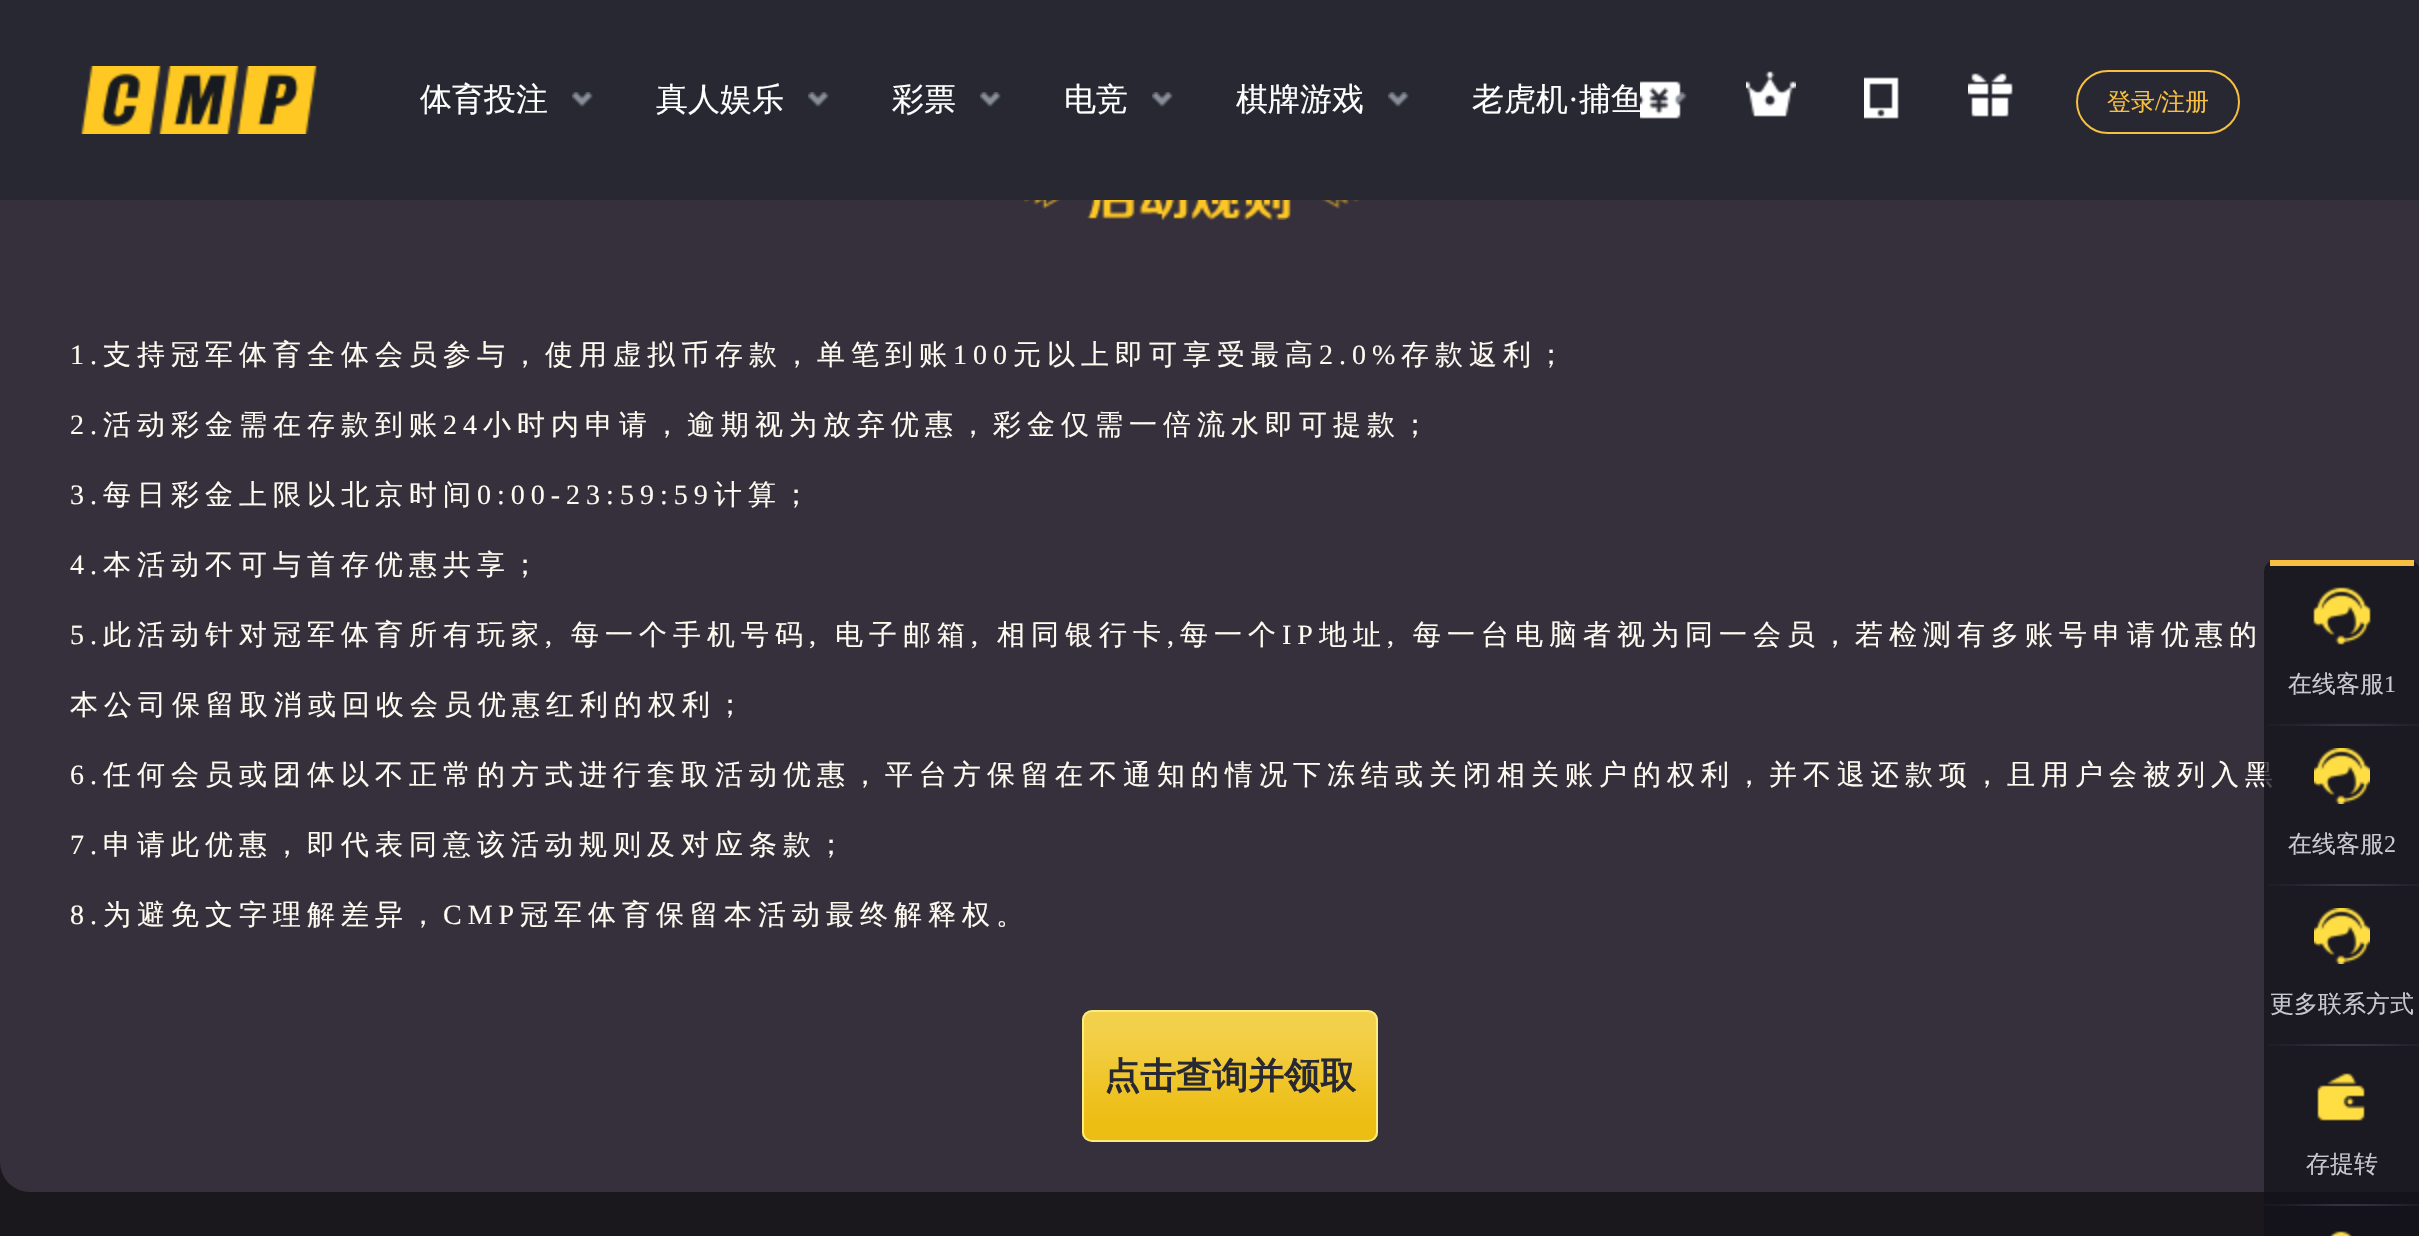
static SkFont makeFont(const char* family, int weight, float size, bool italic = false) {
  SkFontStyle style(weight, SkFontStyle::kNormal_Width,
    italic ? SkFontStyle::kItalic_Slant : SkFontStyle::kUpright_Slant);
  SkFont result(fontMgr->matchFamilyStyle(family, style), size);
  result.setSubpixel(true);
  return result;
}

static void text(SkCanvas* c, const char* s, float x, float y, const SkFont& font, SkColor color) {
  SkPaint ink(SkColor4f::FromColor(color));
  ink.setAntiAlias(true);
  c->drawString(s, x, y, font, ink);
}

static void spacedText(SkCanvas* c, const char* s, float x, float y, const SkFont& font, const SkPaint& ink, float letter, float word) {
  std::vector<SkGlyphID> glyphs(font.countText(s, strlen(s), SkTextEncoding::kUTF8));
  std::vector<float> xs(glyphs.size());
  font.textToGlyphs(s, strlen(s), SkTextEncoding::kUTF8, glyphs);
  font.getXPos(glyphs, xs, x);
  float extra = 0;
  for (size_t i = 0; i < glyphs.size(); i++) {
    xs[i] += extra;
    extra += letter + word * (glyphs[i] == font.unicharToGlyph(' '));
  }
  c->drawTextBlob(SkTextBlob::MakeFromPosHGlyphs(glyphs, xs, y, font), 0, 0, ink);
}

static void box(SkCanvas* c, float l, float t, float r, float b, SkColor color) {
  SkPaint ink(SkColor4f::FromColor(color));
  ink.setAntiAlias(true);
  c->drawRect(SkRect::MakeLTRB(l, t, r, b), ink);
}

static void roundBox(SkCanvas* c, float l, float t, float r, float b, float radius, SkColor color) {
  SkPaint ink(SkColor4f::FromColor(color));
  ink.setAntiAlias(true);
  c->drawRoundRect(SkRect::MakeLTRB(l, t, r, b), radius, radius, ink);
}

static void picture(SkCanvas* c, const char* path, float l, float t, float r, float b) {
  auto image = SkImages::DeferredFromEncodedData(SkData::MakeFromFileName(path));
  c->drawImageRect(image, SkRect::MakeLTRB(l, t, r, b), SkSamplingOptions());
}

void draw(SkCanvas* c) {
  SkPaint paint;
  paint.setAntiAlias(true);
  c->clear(0xff1a171d);
  roundBox(c, 0, -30, 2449, 1192, 30, 0xff362f3c);
  box(c, 0, 0, 2419, 200, 0xff282832);
  picture(c, "img_01.png", 81, 66, 317, 134);
  picture(c, "img_02.png", 572, 92, 593, 107);
  SkFont face1 = makeFont("WenQuanYi Zen Hei", 500, 32);
  text(c, "体育投注", 420, 110, face1, 0xffffffff);
  picture(c, "img_02.png", 808, 92, 829, 107);
  text(c, "真人娱乐", 656, 110, face1, 0xffffffff);
  picture(c, "img_02.png", 980, 92, 1001, 107);
  text(c, "彩票", 892, 110, face1, 0xffffffff);
  picture(c, "img_02.png", 1152, 92, 1173, 107);
  text(c, "电竞", 1064, 110, face1, 0xffffffff);
  picture(c, "img_02.png", 1388, 92, 1409, 107);
  text(c, "棋牌游戏", 1236, 110, face1, 0xffffffff);
  picture(c, "img_02.png", 1666, 92, 1687, 107);
  text(c, "老虎机", 1472, 110, face1, 0xffffffff);
  SkFont face2 = makeFont("Liberation Serif", 400, 32);
  text(c, "·", 1568, 110, face2, 0xffffffff);
  text(c, "捕鱼", 1579, 110, face1, 0xffffffff);
  picture(c, "img_03.png", 1640, 81, 1681, 119);
  picture(c, "img_04.png", 1746, 71, 1796, 117);
  picture(c, "img_05.png", 1864, 77, 1899, 119);
  picture(c, "img_06.png", 1968, 73, 2013, 117);
  paint.setStyle(SkPaint::kStroke_Style);
  paint.setStrokeWidth(2);
  paint.setColor(0xfff8c042);
  c->drawRoundRect(SkRect::MakeLTRB(2077, 71, 2239, 133), 31, 31, paint);
  SkFont face3 = makeFont("WenQuanYi Zen Hei", 500, 24);
  text(c, "登录", 2107, 110, face3, 0xfff8c042);
  SkFont face4 = makeFont("Liberation Serif", 400, 24);
  text(c, "/", 2155, 110, face4, 0xfff8c042);
  text(c, "注册", 2161, 110, face3, 0xfff8c042);
  picture(c, "img_07.png", 1023, 200, 1359, 220);
  SkFont face5 = makeFont("Liberation Serif", 400, 28);
  paint.setStyle(SkPaint::kFill_Style);
  paint.setColor(0xfffffbf0);
  spacedText(c, "1.", 70, 364, face5, paint, 6, 0);
  SkFont face6 = makeFont("WenQuanYi Zen Hei", 500, 28);
  spacedText(c, "支持冠军体育全体会员参与，使用虚拟币存款，单笔到账", 103, 364, face6, paint, 6, 0);
  spacedText(c, "100", 953, 364, face5, paint, 6, 0);
  spacedText(c, "元以上即可享受最高", 1013, 364, face6, paint, 6, 0);
  spacedText(c, "2.0%", 1319, 364, face5, paint, 6, 0);
  spacedText(c, "存款返利；", 1401, 364, face6, paint, 6, 0);
  spacedText(c, "2.", 70, 434, face5, paint, 6, 0);
  spacedText(c, "活动彩金需在存款到账", 103, 434, face6, paint, 6, 0);
  spacedText(c, "24", 443, 434, face5, paint, 6, 0);
  spacedText(c, "小时内申请，逾期视为放弃优惠，彩金仅需一倍流水即可提款；", 483, 434, face6, paint, 6, 0);
  spacedText(c, "3.", 70, 504, face5, paint, 6, 0);
  spacedText(c, "每日彩金上限以北京时间", 103, 504, face6, paint, 6, 0);
  spacedText(c, "0:00-23:59:59", 477, 504, face5, paint, 6, 0);
  spacedText(c, "计算；", 714, 504, face6, paint, 6, 0);
  spacedText(c, "4.", 70, 574, face5, paint, 6, 0);
  spacedText(c, "本活动不可与首存优惠共享；", 103, 574, face6, paint, 6, 0);
  spacedText(c, "5.", 70, 644, face5, paint, 6, 0);
  spacedText(c, "此活动针对冠军体育所有玩家", 103, 644, face6, paint, 6, 0);
  spacedText(c, "每一个手机号码", 571, 644, face6, paint, 6, 0);
  spacedText(c, "电子邮箱", 835, 644, face6, paint, 6, 0);
  spacedText(c, "相同银行卡", 997, 644, face6, paint, 6, 0);
  spacedText(c, "每一个", 1180, 644, face6, paint, 6, 0);
  spacedText(c, "IP", 1282, 644, face5, paint, 6, 0);
  spacedText(c, "地址", 1319, 644, face6, paint, 6, 0);
  spacedText(c, "每一台电脑者视为同一会员，若检测有多账号申请优惠的", 1413, 644, face6, paint, 6, 0);
  spacedText(c, ",", 545, 644, face5, paint, 6, 0);
  spacedText(c, ",", 809, 644, face5, paint, 6, 0);
  spacedText(c, ",", 971, 644, face5, paint, 6, 0);
  spacedText(c, ",", 1167, 644, face5, paint, 6, 0);
  spacedText(c, ",", 1387, 644, face5, paint, 6, 0);
  spacedText(c, "本公司保留取消或回收会员优惠红利的权利；", 70, 714, face6, paint, 6, 0);
  spacedText(c, "6.", 70, 784, face5, paint, 6, 0);
  spacedText(c, "任何会员或团体以不正常的方式进行套取活动优惠，平台方保留在不通知的情况下冻结或关闭相关账户的权利，并不退还款项，且用户会被列入黑", 103, 784, face6, paint, 6, 0);
  spacedText(c, "7.", 70, 854, face5, paint, 6, 0);
  spacedText(c, "申请此优惠，即代表同意该活动规则及对应条款；", 103, 854, face6, paint, 6, 0);
  spacedText(c, "8.", 70, 924, face5, paint, 6, 0);
  spacedText(c, "为避免文字理解差异，", 103, 924, face6, paint, 6, 0);
  spacedText(c, "CMP", 443, 924, face5, paint, 6, 0);
  spacedText(c, "冠军体育保留本活动最终解释权。", 520, 924, face6, paint, 6, 0);
  picture(c, "img_08.png", 1082, 1012, 1378, 1140);
  paint.setStyle(SkPaint::kStroke_Style);
  paint.setColor(0xfffbec82);
  c->drawRoundRect(SkRect::MakeLTRB(1083, 1011, 1377, 1141), 9, 9, paint);
  SkFont face7 = makeFont("WenQuanYi Zen Hei", 700, 36);
  text(c, "点击查询并领取", 1104, 1088, face7, 0xff282832);
  picture(c, "img_09.png", 2264, 561, 2419, 1236);
  box(c, 2270, 560, 2414, 566, 0xfff8c042);
  picture(c, "img_10.png", 2267, 723, 2419, 726);
  picture(c, "img_11.png", 2313, 587, 2371, 645);
  text(c, "在线客服", 2288, 692, face3, 0xffc9c9d0);
  text(c, "1", 2384, 692, face4, 0xffc9c9d0);
  picture(c, "img_12.png", 2267, 884, 2419, 886);
  picture(c, "img_13.png", 2314, 748, 2370, 804);
  text(c, "在线客服", 2288, 852, face3, 0xffc9c9d0);
  text(c, "2", 2384, 852, face4, 0xffc9c9d0);
  picture(c, "img_12.png", 2267, 1044, 2419, 1046);
  picture(c, "img_14.png", 2314, 908, 2370, 964);
  text(c, "更多联系方式", 2270, 1012, face3, 0xffc9c9d0);
  picture(c, "img_15.png", 2264, 1204, 2419, 1206);
  picture(c, "img_16.png", 2317, 1073, 2365, 1121);
  text(c, "存提转", 2306, 1172, face3, 0xffc9c9d0);
  picture(c, "img_17.png", 2329, 1231, 2353, 1236);
}
